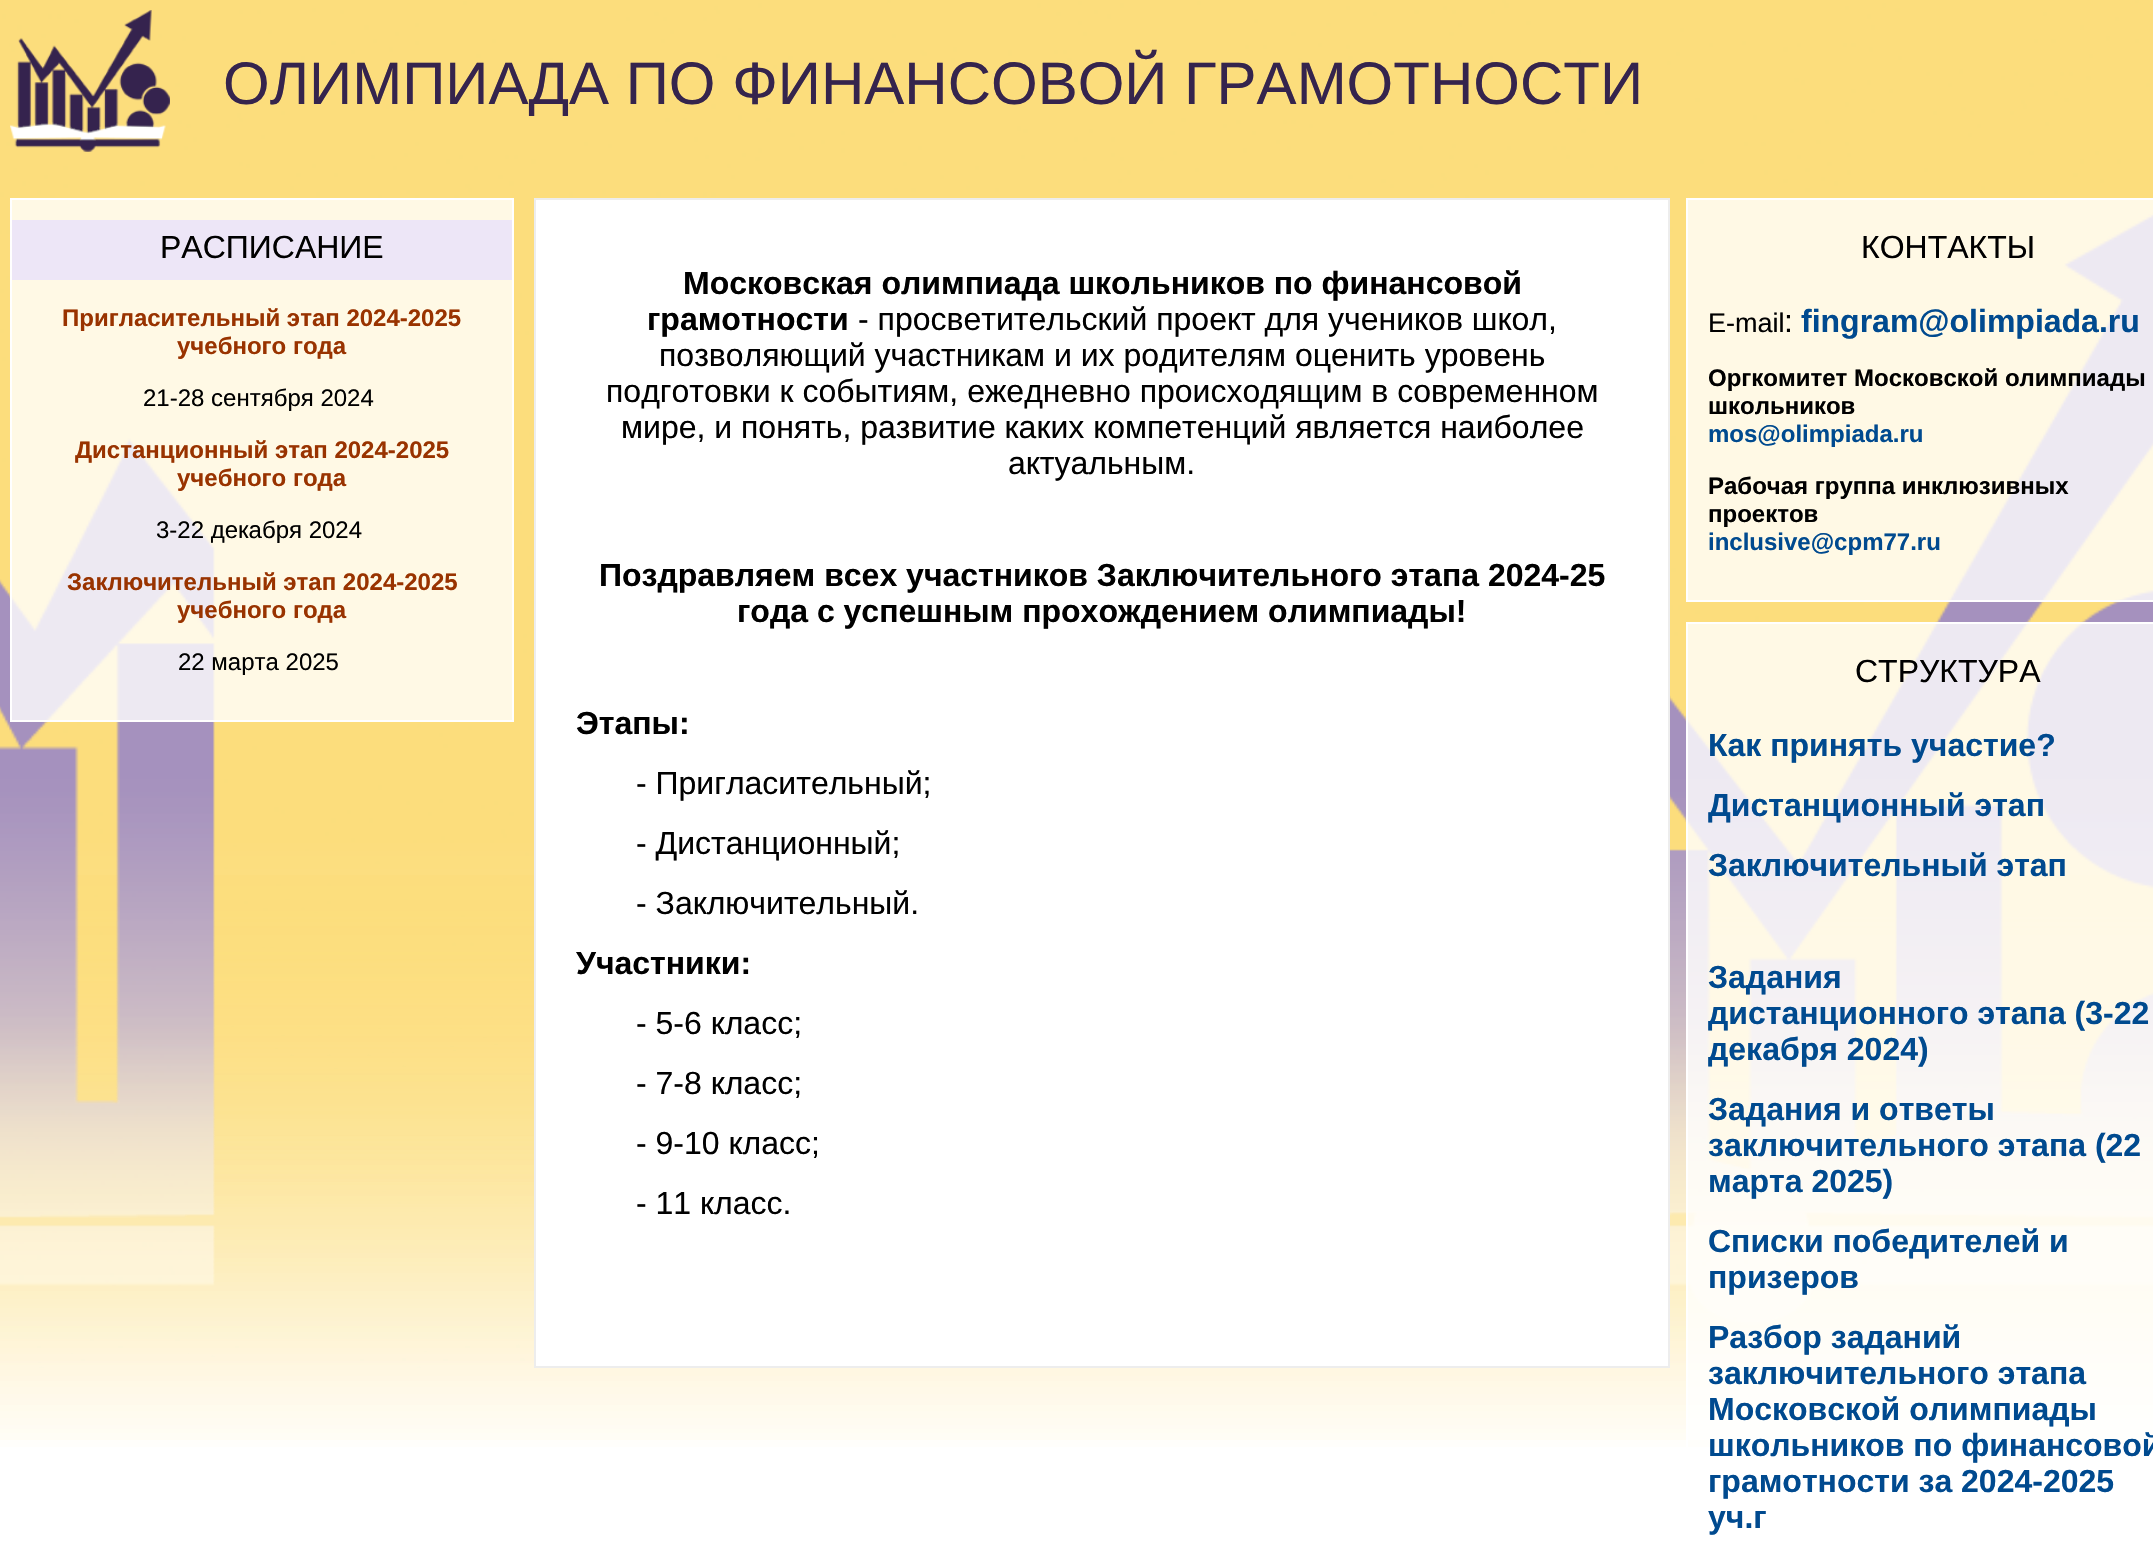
static SkFont makeFont(const char* family, int weight, float size, bool italic = false) {
  SkFontStyle style(weight, SkFontStyle::kNormal_Width,
    italic ? SkFontStyle::kItalic_Slant : SkFontStyle::kUpright_Slant);
  SkFont result(fontMgr->matchFamilyStyle(family, style), size);
  result.setSubpixel(true);
  return result;
}

static void text(SkCanvas* c, const char* s, float x, float y, const SkFont& font, SkColor color) {
  SkPaint ink(SkColor4f::FromColor(color));
  ink.setAntiAlias(true);
  c->drawString(s, x, y, font, ink);
}

static void box(SkCanvas* c, float l, float t, float r, float b, SkColor color) {
  SkPaint ink(SkColor4f::FromColor(color));
  ink.setAntiAlias(true);
  c->drawRect(SkRect::MakeLTRB(l, t, r, b), ink);
}

static void picture(SkCanvas* c, const char* path, float l, float t, float r, float b) {
  auto image = SkImages::DeferredFromEncodedData(SkData::MakeFromFileName(path));
  c->drawImageRect(image, SkRect::MakeLTRB(l, t, r, b), SkSamplingOptions());
}

void draw(SkCanvas* c) {
  SkPaint paint;
  paint.setAntiAlias(true);
  c->clear(0xffffffff);
  picture(c, "img_01.png", 0, 0, 2153, 1447);
  picture(c, "img_02.png", 0, 875, 2153, 1440);
  picture(c, "img_03.png", 10, 10, 170, 152);
  SkFont face1 = makeFont("Liberation Sans", 400, 60);
  text(c, "ОЛИМПИАДА ПО ФИНАНСОВОЙ ГРАМОТНОСТИ", 223, 104, face1, 0xff35244d);
  paint.setColor(0xccffffff);
  c->drawRect(SkRect::MakeLTRB(11, 199, 513, 721), paint);
  paint.setStyle(SkPaint::kStroke_Style);
  paint.setStrokeWidth(2);
  paint.setColor(0xffffffff);
  c->drawRect(SkRect::MakeLTRB(11, 199, 513, 721), paint);
  box(c, 12, 220, 512, 280, 0xffede6f7);
  SkFont face2 = makeFont("Liberation Sans", 400, 32);
  text(c, "РАСПИСАНИЕ", 160, 258, face2, 0xff000000);
  SkFont face3 = makeFont("Liberation Sans", 700, 24);
  text(c, "Пригласительный этап 2024-2025", 62, 326, face3, 0xff993300);
  text(c, "учебного года", 177, 354, face3, 0xff993300);
  SkFont face4 = makeFont("Liberation Sans", 400, 24);
  text(c, "21-28 сентября 2024", 143, 406, face4, 0xff000000);
  text(c, "Дистанционный этап 2024-2025", 75, 458, face3, 0xff993300);
  text(c, "учебного года", 177, 486, face3, 0xff993300);
  text(c, "3-22 декабря 2024", 156, 538, face4, 0xff000000);
  text(c, "Заключительный этап 2024-2025", 67, 590, face3, 0xff993300);
  text(c, "учебного года", 177, 618, face3, 0xff993300);
  text(c, "22 марта 2025", 178, 670, face4, 0xff000000);
  paint.setStyle(SkPaint::kFill_Style);
  c->drawRect(SkRect::MakeLTRB(535, 199, 1669, 1367), paint);
  paint.setStyle(SkPaint::kStroke_Style);
  paint.setColor(0xffededed);
  c->drawRect(SkRect::MakeLTRB(535, 199, 1669, 1367), paint);
  SkFont face5 = makeFont("Liberation Sans", 700, 32);
  text(c, "Московская олимпиада школьников по финансовой", 683, 294, face5, 0xff000000);
  text(c, "грамотности", 647, 330, face5, 0xff000000);
  text(c, "- просветительский проект для учеников школ,", 858, 330, face2, 0xff000000);
  text(c, "позволяющий участникам и их родителям оценить уровень", 659, 366, face2, 0xff000000);
  text(c, "подготовки к событиям, ежедневно происходящим в современном", 606, 402, face2, 0xff000000);
  text(c, "мире, и понять, развитие каких компетенций является наиболее", 621, 438, face2, 0xff000000);
  text(c, "актуальным.", 1008, 474, face2, 0xff000000);
  text(c, "Поздравляем всех участников Заключительного этапа 2024-25", 599, 586, face5, 0xff000000);
  text(c, "года с успешным прохождением олимпиады!", 737, 622, face5, 0xff000000);
  text(c, "Этапы:", 576, 734, face5, 0xff000000);
  text(c, "- Пригласительный;", 636, 794, face2, 0xff000000);
  text(c, "- Дистанционный;", 636, 854, face2, 0xff000000);
  text(c, "- Заключительный.", 636, 914, face2, 0xff000000);
  text(c, "Участники:", 576, 974, face5, 0xff000000);
  text(c, "- 5-6 класс;", 636, 1034, face2, 0xff000000);
  text(c, "- 7-8 класс;", 636, 1094, face2, 0xff000000);
  text(c, "- 9-10 класс;", 636, 1154, face2, 0xff000000);
  text(c, "- 11 класс.", 636, 1214, face2, 0xff000000);
  paint.setStyle(SkPaint::kFill_Style);
  paint.setColor(0xccffffff);
  c->drawRect(SkRect::MakeLTRB(1687, 199, 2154, 601), paint);
  paint.setStyle(SkPaint::kStroke_Style);
  paint.setColor(0xffffffff);
  c->drawRect(SkRect::MakeLTRB(1687, 199, 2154, 601), paint);
  text(c, "КОНТАКТЫ", 1861, 258, face2, 0xff000000);
  SkFont face6 = makeFont("Liberation Sans", 400, 27);
  text(c, "E-mail", 1708, 332, face6, 0xff000000);
  text(c, ":", 1784, 332, face2, 0xff000000);
  text(c, "fingram@olimpiada.ru", 1801, 332, face5, 0xff004a8f);
  text(c, "Оргкомитет Московской олимпиады", 1708, 386, face3, 0xff000000);
  text(c, "школьников", 1708, 414, face3, 0xff000000);
  text(c, "mos@olimpiada.ru", 1708, 442, face3, 0xff004a8f);
  text(c, "Рабочая группа инклюзивных", 1708, 494, face3, 0xff000000);
  text(c, "проектов", 1708, 522, face3, 0xff000000);
  text(c, "inclusive@cpm77.ru", 1708, 550, face3, 0xff004a8f);
  box(c, 1688, 624, 2153, 1440, 0xccffffff);
  c->drawRect(SkRect::MakeLTRB(1687, 623, 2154, 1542), paint);
  text(c, "СТРУКТУРА", 1855, 682, face2, 0xff000000);
  text(c, "Как принять участие?", 1708, 756, face5, 0xff004a8f);
  text(c, "Дистанционный этап", 1708, 816, face5, 0xff004a8f);
  text(c, "Заключительный этап", 1708, 876, face5, 0xff004a8f);
  text(c, "Задания", 1708, 988, face5, 0xff004a8f);
  text(c, "дистанционного этапа (3-22", 1708, 1024, face5, 0xff004a8f);
  text(c, "декабря 2024)", 1708, 1060, face5, 0xff004a8f);
  text(c, "Задания и ответы", 1708, 1120, face5, 0xff004a8f);
  text(c, "заключительного этапа (22", 1708, 1156, face5, 0xff004a8f);
  text(c, "марта 2025)", 1708, 1192, face5, 0xff004a8f);
  text(c, "Списки победителей и", 1708, 1252, face5, 0xff004a8f);
  text(c, "призеров", 1708, 1288, face5, 0xff004a8f);
  text(c, "Разбор заданий", 1708, 1348, face5, 0xff004a8f);
  text(c, "заключительного этапа", 1708, 1384, face5, 0xff004a8f);
  text(c, "Московской олимпиады", 1708, 1420, face5, 0xff004a8f);
  text(c, "школьников по финансовой", 1708, 1456, face5, 0xff004a8f);
  text(c, "грамотности за 2024-2025", 1708, 1492, face5, 0xff004a8f);
  text(c, "уч.г", 1708, 1528, face5, 0xff004a8f);
}
